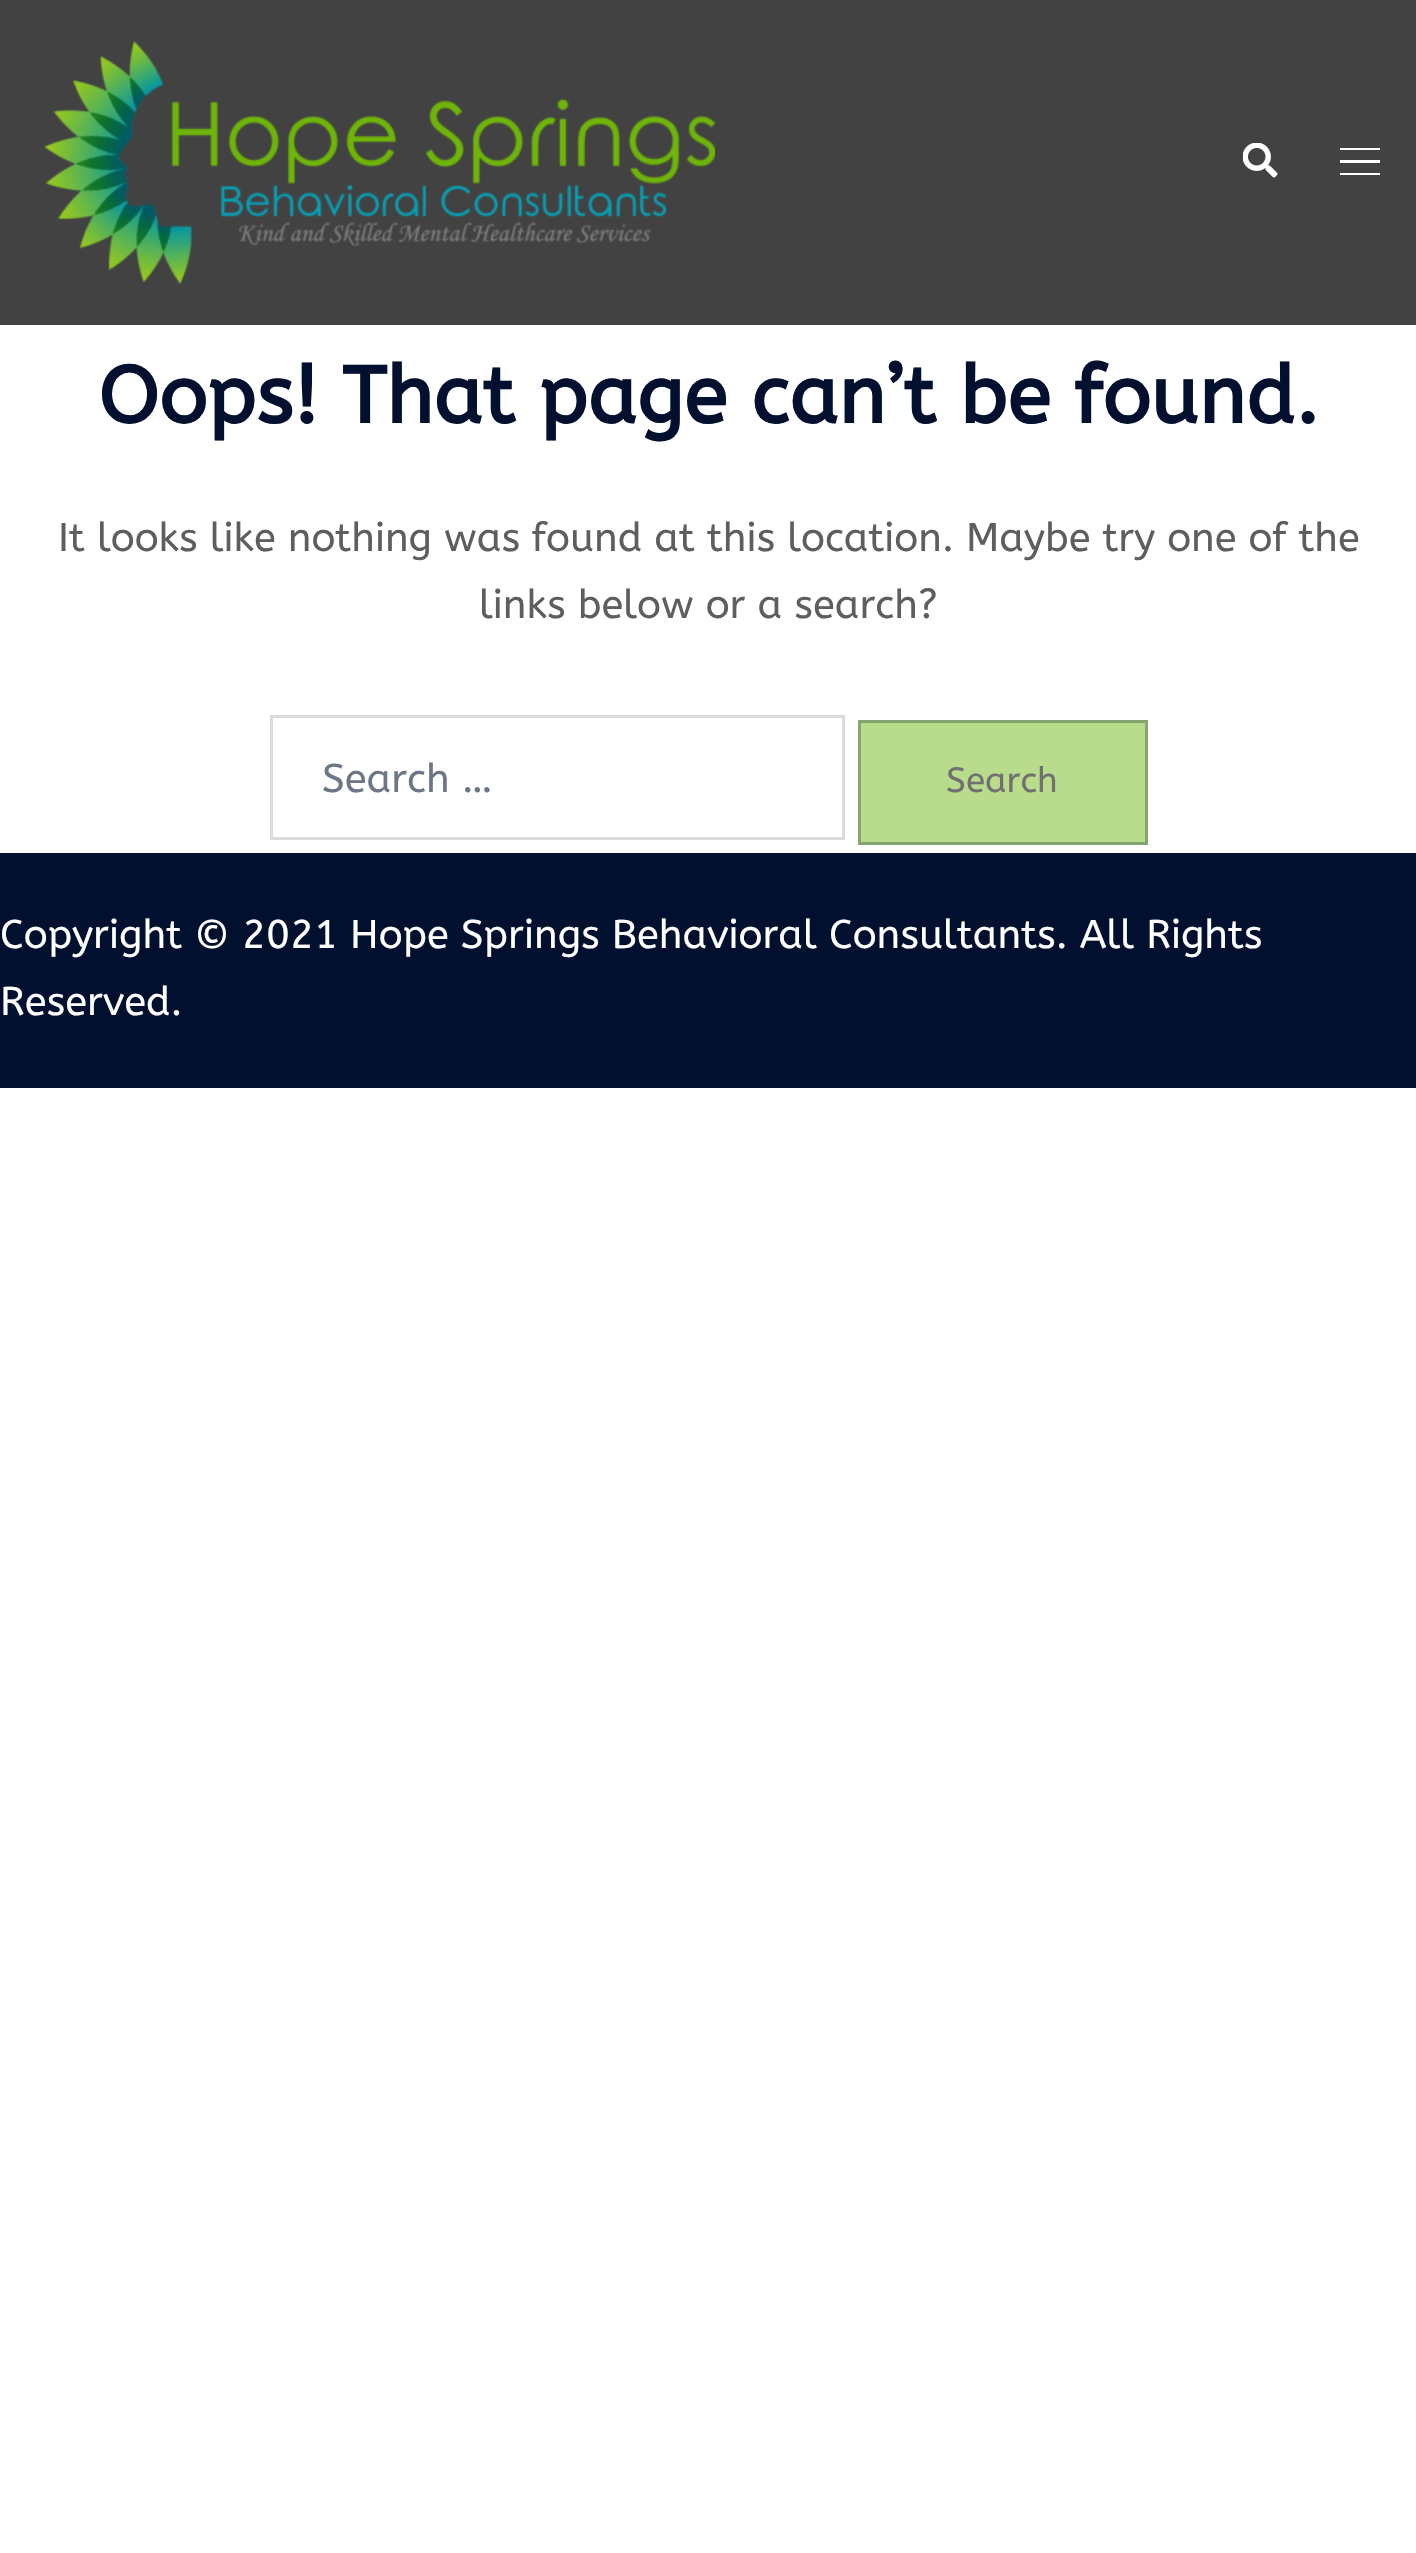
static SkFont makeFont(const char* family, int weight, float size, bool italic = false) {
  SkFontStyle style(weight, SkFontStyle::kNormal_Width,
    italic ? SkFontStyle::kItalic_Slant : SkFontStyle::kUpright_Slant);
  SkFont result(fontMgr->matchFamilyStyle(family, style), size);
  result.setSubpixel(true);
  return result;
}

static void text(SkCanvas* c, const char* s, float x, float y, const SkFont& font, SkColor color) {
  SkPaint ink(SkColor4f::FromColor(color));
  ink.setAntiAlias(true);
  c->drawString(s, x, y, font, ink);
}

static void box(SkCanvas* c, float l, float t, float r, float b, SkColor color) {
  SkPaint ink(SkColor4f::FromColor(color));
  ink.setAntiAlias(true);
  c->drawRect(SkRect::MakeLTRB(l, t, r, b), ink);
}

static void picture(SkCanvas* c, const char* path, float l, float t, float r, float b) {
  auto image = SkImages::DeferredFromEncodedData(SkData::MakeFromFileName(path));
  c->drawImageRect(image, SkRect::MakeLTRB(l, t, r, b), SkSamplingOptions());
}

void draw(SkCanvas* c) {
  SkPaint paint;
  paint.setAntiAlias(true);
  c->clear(0xffffffff);
  box(c, 0, 0, 1416, 325, 0xff424242);
  picture(c, "img_01.png", 44, 41, 715, 284);
  picture(c, "img_02.png", 1243, 143, 1278, 178);
  box(c, 1340, 148, 1380, 150, 0xffffffff);
  box(c, 1340, 160, 1380, 163, 0xffffffff);
  box(c, 1340, 173, 1380, 175, 0xffffffff);
  SkFont face1 = makeFont("ABeeZee", 700, 80);
  text(c, "Oops! That page can’t be found.", 98, 423, face1, 0xff00102e);
  SkFont face2 = makeFont("ABeeZee", 400, 40);
  text(c, "It looks like nothing was found at this location. Maybe try one of the", 58, 551, face2, 0xff5e5e5e);
  text(c, "links below or a search?", 479, 618, face2, 0xff5e5e5e);
  paint.setStyle(SkPaint::kStroke_Style);
  paint.setStrokeWidth(3);
  paint.setColor(0xffdbdbdb);
  c->drawRect(SkRect::MakeLTRB(271.5f, 716.5f, 843.5f, 838.5f), paint);
  text(c, "Search …", 322, 792, face2, 0xff6d7685);
  paint.setStyle(SkPaint::kFill_Style);
  paint.setColor(0xffb9db8c);
  c->drawRect(SkRect::MakeLTRB(859.5f, 721.5f, 1146.5f, 843.5f), paint);
  paint.setStyle(SkPaint::kStroke_Style);
  paint.setColor(0xff84a56f);
  c->drawRect(SkRect::MakeLTRB(859.5f, 721.5f, 1146.5f, 843.5f), paint);
  SkFont face3 = makeFont("ABeeZee", 400, 35);
  text(c, "Search", 946, 792, face3, 0xff707070);
  box(c, 0, 853, 1416, 1088, 0xff00102e);
  text(c, "Copyright © 2021 Hope Springs Behavioral Consultants. All Rights", 0, 948, face2, 0xffffffff);
  text(c, "Reserved.", 0, 1015, face2, 0xffffffff);
}
